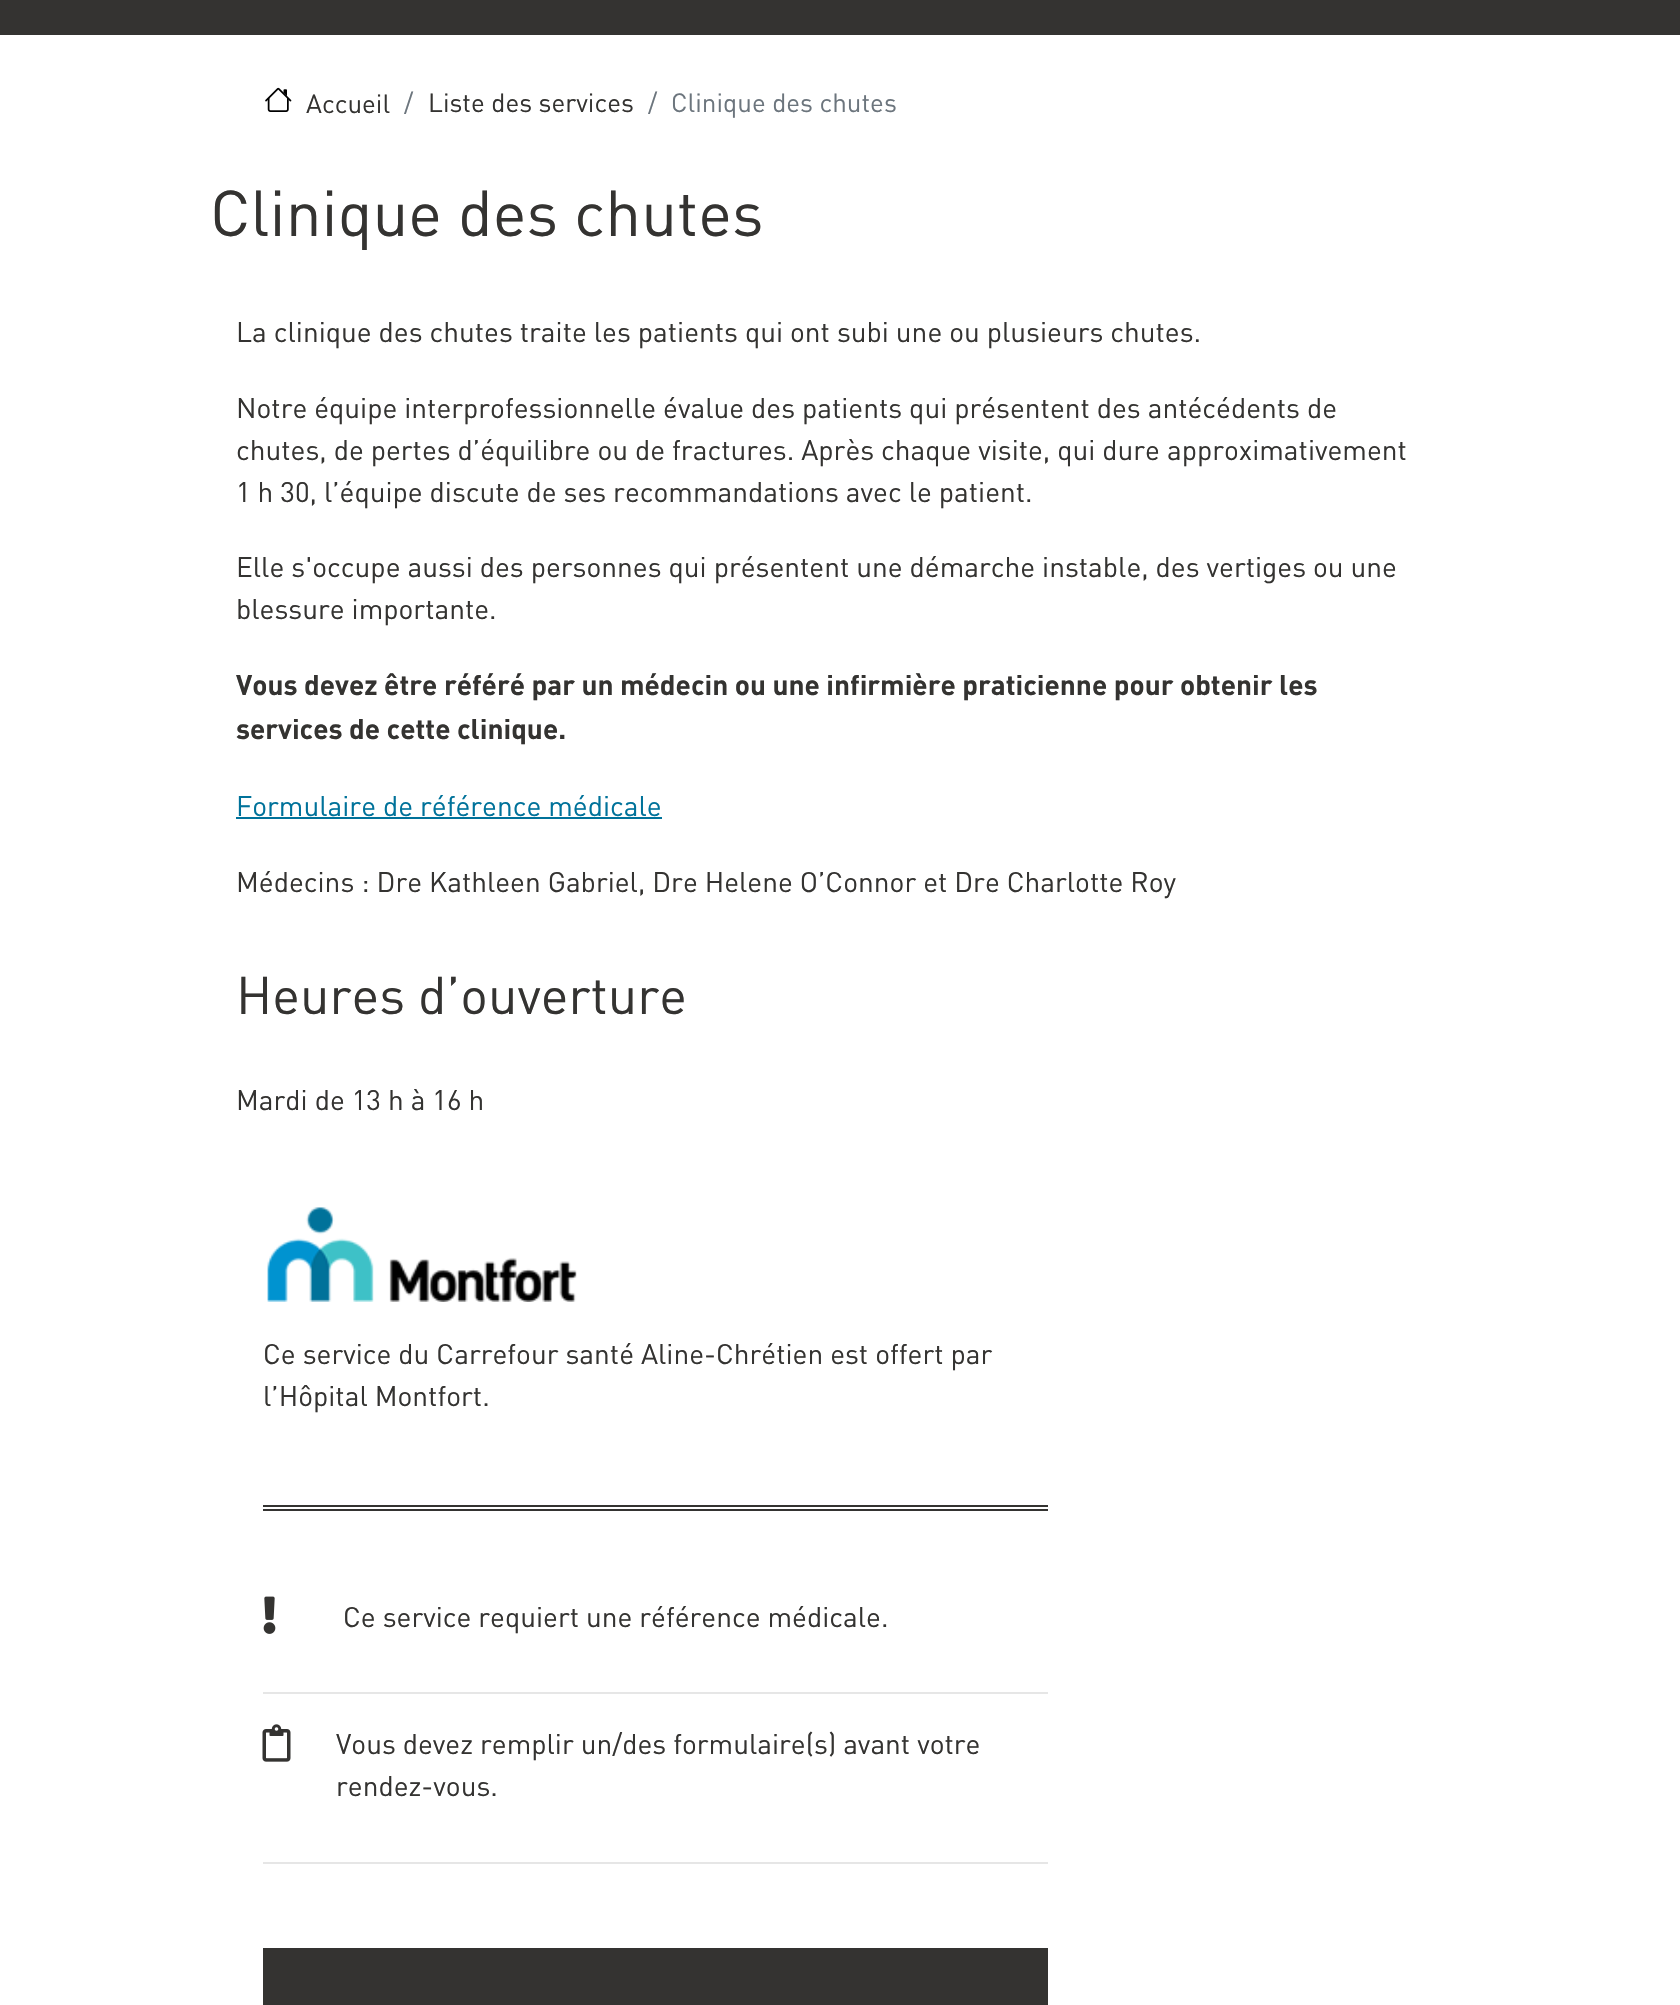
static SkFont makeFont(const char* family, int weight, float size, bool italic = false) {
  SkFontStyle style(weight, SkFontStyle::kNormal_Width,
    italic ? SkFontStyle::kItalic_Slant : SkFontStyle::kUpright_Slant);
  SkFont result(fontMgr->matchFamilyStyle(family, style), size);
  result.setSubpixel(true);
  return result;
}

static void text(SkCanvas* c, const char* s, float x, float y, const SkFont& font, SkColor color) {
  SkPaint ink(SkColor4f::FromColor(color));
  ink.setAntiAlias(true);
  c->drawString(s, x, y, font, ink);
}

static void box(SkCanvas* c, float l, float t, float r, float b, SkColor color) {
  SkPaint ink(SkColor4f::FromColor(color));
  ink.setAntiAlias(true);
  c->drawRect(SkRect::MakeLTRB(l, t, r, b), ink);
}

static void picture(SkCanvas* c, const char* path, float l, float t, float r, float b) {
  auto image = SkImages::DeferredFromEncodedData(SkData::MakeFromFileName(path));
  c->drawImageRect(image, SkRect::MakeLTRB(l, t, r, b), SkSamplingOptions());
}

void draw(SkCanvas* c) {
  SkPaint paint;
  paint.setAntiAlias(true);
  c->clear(0xffffffff);
  box(c, 0, 0, 1680, 35, 0xff343331);
  picture(c, "img_01.png", 265, 87, 292, 112);
  SkFont face1 = makeFont("DIN", 400, 26);
  text(c, "Accueil", 306, 113, face1, 0xff343331);
  text(c, "/", 404, 112, face1, 0xff6c757d);
  text(c, "Liste des services", 428, 112, face1, 0xff343331);
  text(c, "/", 648, 112, face1, 0xff6c757d);
  text(c, "Clinique des chutes", 671, 112, face1, 0xff6c757d);
  SkFont face2 = makeFont("DIN", 400, 63.75f);
  text(c, "Clinique des chutes", 210, 236, face2, 0xff343331);
  SkFont face3 = makeFont("DIN", 400, 28);
  text(c, "La clinique des chutes traite les patients qui ont subi une ou plusieurs chutes.", 236, 342, face3, 0xff343331);
  text(c, "Notre équipe interprofessionnelle évalue des patients qui présentent des antécédents de", 236, 418, face3, 0xff343331);
  text(c, "chutes, de pertes d’équilibre ou de fractures. Après chaque visite, qui dure approximativement", 236, 460, face3, 0xff343331);
  text(c, "1 h 30, l’équipe discute de ses recommandations avec le patient.", 236, 502, face3, 0xff343331);
  text(c, "Elle s'occupe aussi des personnes qui présentent une démarche instable, des vertiges ou une", 236, 577, face3, 0xff343331);
  text(c, "blessure importante.", 236, 619, face3, 0xff343331);
  SkFont face4 = makeFont("DIN", 700, 28);
  text(c, "Vous devez être référé par un médecin ou une infirmière praticienne pour obtenir les", 236, 695, face4, 0xff343331);
  text(c, "services de cette clinique.", 236, 739, face4, 0xff343331);
  text(c, "Formulaire de référence médicale", 236, 816, face3, 0xff00729a);
  box(c, 236, 817, 662, 819, 0xff00729a);
  text(c, "Médecins : Dre Kathleen Gabriel, Dre Helene O’Connor et Dre Charlotte Roy", 236, 892, face3, 0xff343331);
  SkFont face5 = makeFont("DIN", 400, 52.25f);
  text(c, "Heures d’ouverture", 236, 1014, face5, 0xff343331);
  text(c, "Mardi de 13 h à 16 h", 236, 1110, face3, 0xff343331);
  picture(c, "img_02.png", 267, 1207, 577, 1302);
  text(c, "Ce service du Carrefour santé Aline-Chrétien est offert par", 263, 1364, face3, 0xff343331);
  text(c, "l’Hôpital Montfort.", 263, 1406, face3, 0xff343331);
  box(c, 263, 1505, 1048, 1507, 0xff343331);
  box(c, 263, 1509, 1048, 1511, 0xff343331);
  picture(c, "img_03.png", 263, 1596, 276, 1634);
  text(c, "Ce service requiert une référence médicale.", 343, 1627, face3, 0xff343331);
  box(c, 263, 1692, 1048, 1694, 0xffe6e6e6);
  picture(c, "img_04.png", 262, 1724, 291, 1762);
  text(c, "Vous devez remplir un/des formulaire(s) avant votre", 336, 1754, face3, 0xff343331);
  text(c, "rendez-vous.", 336, 1796, face3, 0xff343331);
  box(c, 263, 1862, 1048, 1864, 0xffe6e6e6);
  box(c, 263, 1948, 1048, 2005, 0xff343331);
}
